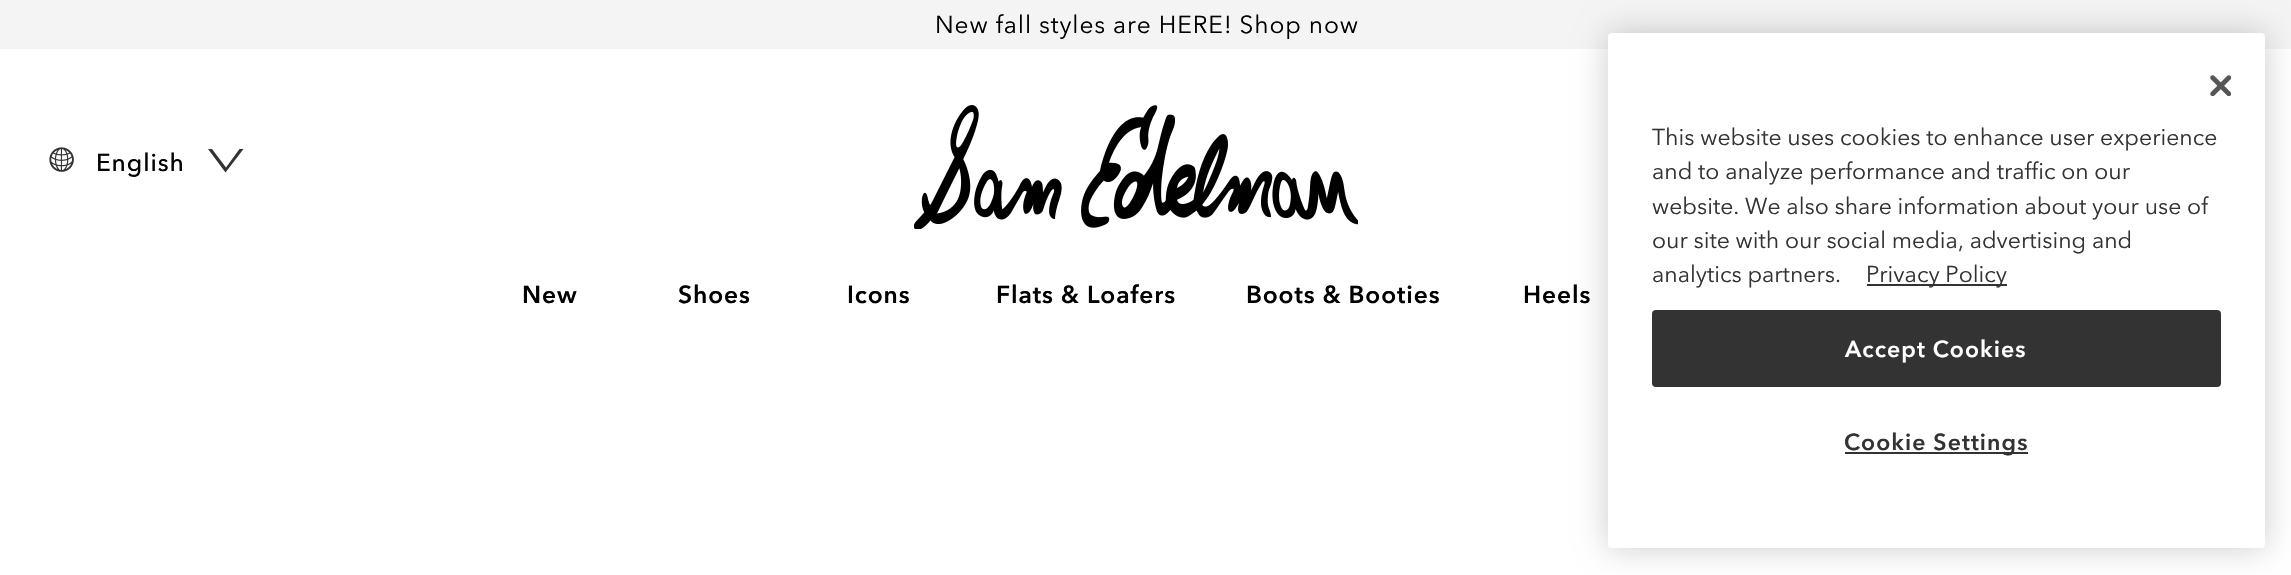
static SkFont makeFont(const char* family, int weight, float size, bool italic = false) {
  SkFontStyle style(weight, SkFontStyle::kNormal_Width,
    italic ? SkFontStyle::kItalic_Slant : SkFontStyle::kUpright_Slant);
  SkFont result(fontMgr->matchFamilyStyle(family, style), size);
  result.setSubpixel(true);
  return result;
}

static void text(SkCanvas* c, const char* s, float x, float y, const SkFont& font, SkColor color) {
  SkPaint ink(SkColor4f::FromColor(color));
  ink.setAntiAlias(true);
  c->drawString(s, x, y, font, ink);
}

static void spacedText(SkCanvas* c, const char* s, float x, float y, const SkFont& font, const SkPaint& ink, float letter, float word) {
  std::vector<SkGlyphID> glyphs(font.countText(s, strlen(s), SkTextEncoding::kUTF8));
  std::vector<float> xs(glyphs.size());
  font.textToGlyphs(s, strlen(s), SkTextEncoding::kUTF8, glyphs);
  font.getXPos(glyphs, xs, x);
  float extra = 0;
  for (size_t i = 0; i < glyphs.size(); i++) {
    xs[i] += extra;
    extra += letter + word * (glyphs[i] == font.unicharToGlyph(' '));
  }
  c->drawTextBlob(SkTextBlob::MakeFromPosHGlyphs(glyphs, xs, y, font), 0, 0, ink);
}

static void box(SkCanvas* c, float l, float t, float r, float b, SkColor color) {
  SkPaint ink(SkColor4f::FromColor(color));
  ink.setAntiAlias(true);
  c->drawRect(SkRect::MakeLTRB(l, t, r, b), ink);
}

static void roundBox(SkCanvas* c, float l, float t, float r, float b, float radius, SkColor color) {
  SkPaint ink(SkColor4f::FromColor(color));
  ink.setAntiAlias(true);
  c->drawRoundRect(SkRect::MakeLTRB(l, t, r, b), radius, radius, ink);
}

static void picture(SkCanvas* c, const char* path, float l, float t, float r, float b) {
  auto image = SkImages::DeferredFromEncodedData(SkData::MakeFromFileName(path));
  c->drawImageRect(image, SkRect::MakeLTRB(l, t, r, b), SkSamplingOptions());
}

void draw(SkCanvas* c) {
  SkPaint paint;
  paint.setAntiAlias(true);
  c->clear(0xffffffff);
  box(c, 0, 0, 2291, 49, 0xfff4f4f4);
  SkFont face1 = makeFont("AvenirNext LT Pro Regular", 400, 24.5f);
  paint.setColor(0xff000000);
  spacedText(c, "New fall styles are HERE! Shop now", 935, 33, face1, paint, 0.9f, 0);
  picture(c, "img_01.png", 49, 147, 74, 172);
  SkFont face2 = makeFont("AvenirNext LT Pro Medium", 500, 24.5f);
  spacedText(c, "English", 96, 171, face2, paint, 0.9f, 0);
  paint.setColor(0xff333333);
  c->drawPath(SkPathBuilder().moveTo(225.5f, 172.5f).lineTo(243.5f, 149).lineTo(239.5f, 149).lineTo(226, 167.5f).lineTo(212, 149).lineTo(208, 149).close().detach(), paint);
  picture(c, "img_02.png", 914, 105, 1358, 229);
  SkFont face3 = makeFont("AvenirNext LT Pro Regular", 700, 24.5f);
  paint.setColor(0xff000000);
  spacedText(c, "New", 522, 303, face3, paint, 0.9f, 0);
  spacedText(c, "Shoes", 678, 303, face3, paint, 0.9f, 0);
  spacedText(c, "Icons", 847, 303, face3, paint, 0.9f, 0);
  spacedText(c, "Flats & Loafers", 996, 303, face3, paint, 0.9f, 0);
  spacedText(c, "Boots & Booties", 1246, 303, face3, paint, 0.9f, 0);
  spacedText(c, "Heels", 1523, 303, face3, paint, 0.9f, 0);
  paint.setColor(0x33000000);
  paint.setMaskFilter(SkMaskFilter::MakeBlur(kNormal_SkBlurStyle, 16));
  c->drawRoundRect(SkRect::MakeLTRB(1608, 33, 2265, 548), 4, 4, paint);
  paint.setMaskFilter(nullptr);
  roundBox(c, 1608, 33, 2265, 548, 4, 0xffffffff);
  picture(c, "img_03.png", 2210, 75, 2231, 96);
  SkFont face4 = makeFont("AvenirNext LT Pro Regular", 400, 23);
  text(c, "This website uses cookies to enhance user experience", 1652, 145, face4, 0xff333333);
  text(c, "and to analyze performance and traffic on our", 1652, 179, face4, 0xff333333);
  text(c, "website. We also share information about your use of", 1652, 214, face4, 0xff333333);
  text(c, "our site with our social media, advertising and", 1652, 248, face4, 0xff333333);
  text(c, "analytics partners.", 1652, 282, face4, 0xff333333);
  box(c, 1867, 284, 2007, 286, 0xff333333);
  text(c, "Privacy Policy", 1866, 282, face4, 0xff333333);
  paint.setColor(0xff333333);
  c->drawRoundRect(SkRect::MakeLTRB(1653, 311, 2220, 386), 3, 3, paint);
  paint.setStyle(SkPaint::kStroke_Style);
  paint.setStrokeWidth(2);
  c->drawRoundRect(SkRect::MakeLTRB(1653, 311, 2220, 386), 3, 3, paint);
  SkFont face5 = makeFont("AvenirNext LT Pro Regular", 700, 23);
  paint.setStyle(SkPaint::kFill_Style);
  paint.setColor(0xffffffff);
  spacedText(c, "Accept Cookies", 1845, 357, face5, paint, 1.1f, 0);
  box(c, 1845, 452, 2028, 454, 0xff333333);
  paint.setColor(0xff333333);
  spacedText(c, "Cookie Settings", 1844, 450, face5, paint, 1.1f, 0);
}
